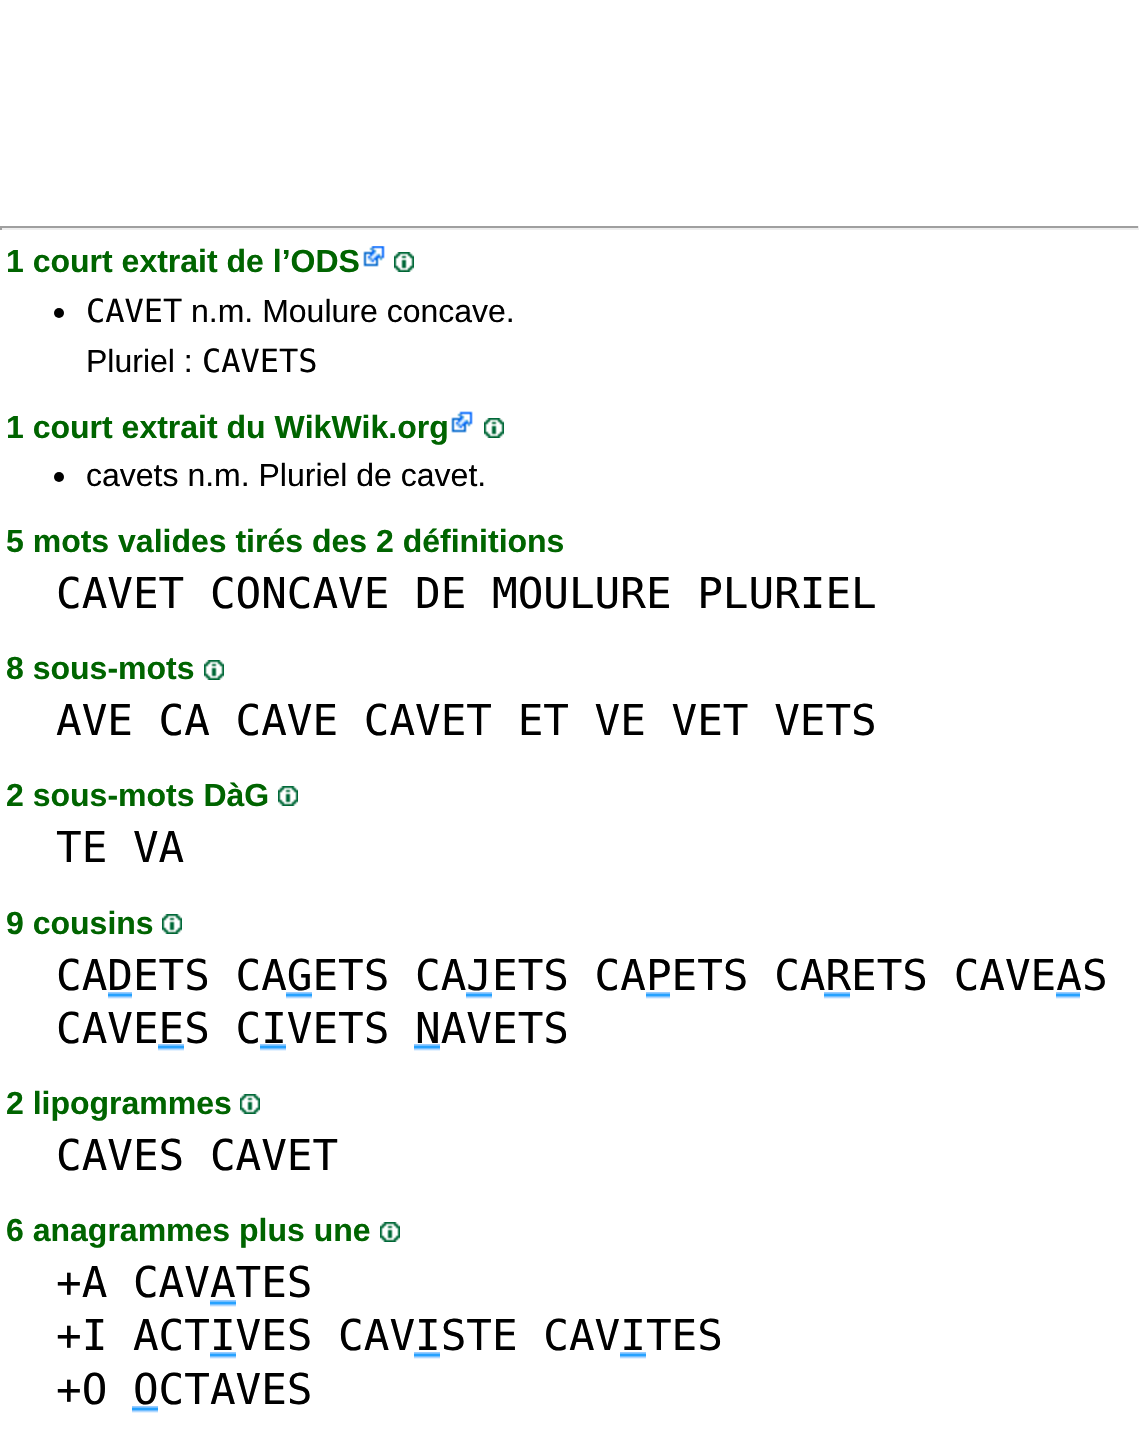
static SkFont makeFont(const char* family, int weight, float size, bool italic = false) {
  SkFontStyle style(weight, SkFontStyle::kNormal_Width,
    italic ? SkFontStyle::kItalic_Slant : SkFontStyle::kUpright_Slant);
  SkFont result(fontMgr->matchFamilyStyle(family, style), size);
  result.setSubpixel(true);
  return result;
}

static void text(SkCanvas* c, const char* s, float x, float y, const SkFont& font, SkColor color) {
  SkPaint ink(SkColor4f::FromColor(color));
  ink.setAntiAlias(true);
  c->drawString(s, x, y, font, ink);
}

static void box(SkCanvas* c, float l, float t, float r, float b, SkColor color) {
  SkPaint ink(SkColor4f::FromColor(color));
  ink.setAntiAlias(true);
  c->drawRect(SkRect::MakeLTRB(l, t, r, b), ink);
}

static void picture(SkCanvas* c, const char* path, float l, float t, float r, float b) {
  auto image = SkImages::DeferredFromEncodedData(SkData::MakeFromFileName(path));
  c->drawImageRect(image, SkRect::MakeLTRB(l, t, r, b), SkSamplingOptions());
}

void draw(SkCanvas* c) {
  SkPaint paint;
  paint.setAntiAlias(true);
  c->clear(0xffffffff);
  box(c, 0, 226, 1139, 228, 0xff9f9f9f);
  box(c, 1138, 226, 1139, 230, 0xffeeeeee);
  box(c, 0, 228, 1139, 230, 0xffeeeeee);
  box(c, 0, 226, 2, 230, 0xff9f9f9f);
  SkFont face1 = makeFont("Liberation Sans", 700, 32);
  text(c, "1 court extrait de l’ODS", 6, 272, face1, 0xff006400);
  picture(c, "img_01.png", 363, 246, 385, 267);
  picture(c, "img_02.png", 394, 252, 414, 272);
  paint.setColor(0xff000000);
  c->drawCircle(59, 313, 5, paint);
  SkFont face2 = makeFont("DejaVu Sans Mono", 400, 32);
  text(c, "CAVET", 86, 322, face2, 0xff000000);
  SkFont face3 = makeFont("Liberation Sans", 400, 32);
  text(c, "n.m. Moulure concave.", 191, 322, face3, 0xff000000);
  text(c, "Pluriel :", 86, 372, face3, 0xff000000);
  text(c, "CAVETS", 202, 372, face2, 0xff000000);
  text(c, "1 court extrait du WikWik.org", 6, 438, face1, 0xff006400);
  picture(c, "img_03.png", 451, 411, 473, 433);
  picture(c, "img_02.png", 484, 418, 504, 438);
  c->drawCircle(59, 477, 5, paint);
  text(c, "cavets n.m. Pluriel de cavet.", 86, 486, face3, 0xff000000);
  text(c, "5 mots valides tirés des 2 définitions", 6, 552, face1, 0xff006400);
  SkFont face4 = makeFont("DejaVu Sans Mono", 400, 42.6f);
  text(c, "CAVET CONCAVE DE MOULURE PLURIEL", 56, 608, face4, 0xff000000);
  text(c, "8 sous-mots", 6, 679, face1, 0xff006400);
  picture(c, "img_02.png", 204, 660, 224, 680);
  text(c, "AVE CA CAVE CAVET ET VE VET VETS", 56, 735, face4, 0xff000000);
  text(c, "2 sous-mots DàG", 6, 806, face1, 0xff006400);
  picture(c, "img_02.png", 278, 786, 298, 806);
  text(c, "TE VA", 56, 862, face4, 0xff000000);
  text(c, "9 cousins", 6, 934, face1, 0xff006400);
  picture(c, "img_02.png", 162, 914, 182, 934);
  text(c, "CADETS CAGETS CAJETS CAPETS CARETS CAVEAS", 56, 990, face4, 0xff000000);
  picture(c, "img_04.png", 108, 992, 132, 999);
  picture(c, "img_05.png", 286, 992, 312, 999);
  picture(c, "img_05.png", 466, 992, 492, 999);
  picture(c, "img_04.png", 646, 992, 670, 999);
  picture(c, "img_05.png", 824, 992, 850, 999);
  picture(c, "img_04.png", 1056, 992, 1080, 999);
  text(c, "CAVEES CIVETS NAVETS", 56, 1043, face4, 0xff000000);
  picture(c, "img_05.png", 158, 1044, 184, 1051);
  picture(c, "img_05.png", 260, 1044, 286, 1051);
  picture(c, "img_05.png", 414, 1044, 440, 1051);
  text(c, "2 lipogrammes", 6, 1114, face1, 0xff006400);
  picture(c, "img_02.png", 240, 1094, 260, 1114);
  text(c, "CAVES CAVET", 56, 1170, face4, 0xff000000);
  text(c, "6 anagrammes plus une", 6, 1241, face1, 0xff006400);
  picture(c, "img_02.png", 380, 1222, 400, 1242);
  text(c, "+A CAVATES", 56, 1297, face4, 0xff000000);
  picture(c, "img_05.png", 210, 1300, 236, 1307);
  text(c, "+I ACTIVES CAVISTE CAVITES", 56, 1350, face4, 0xff000000);
  picture(c, "img_05.png", 210, 1352, 236, 1359);
  picture(c, "img_05.png", 414, 1352, 440, 1359);
  picture(c, "img_05.png", 620, 1352, 646, 1359);
  text(c, "+O OCTAVES", 56, 1404, face4, 0xff000000);
  picture(c, "img_05.png", 132, 1406, 158, 1413);
}
